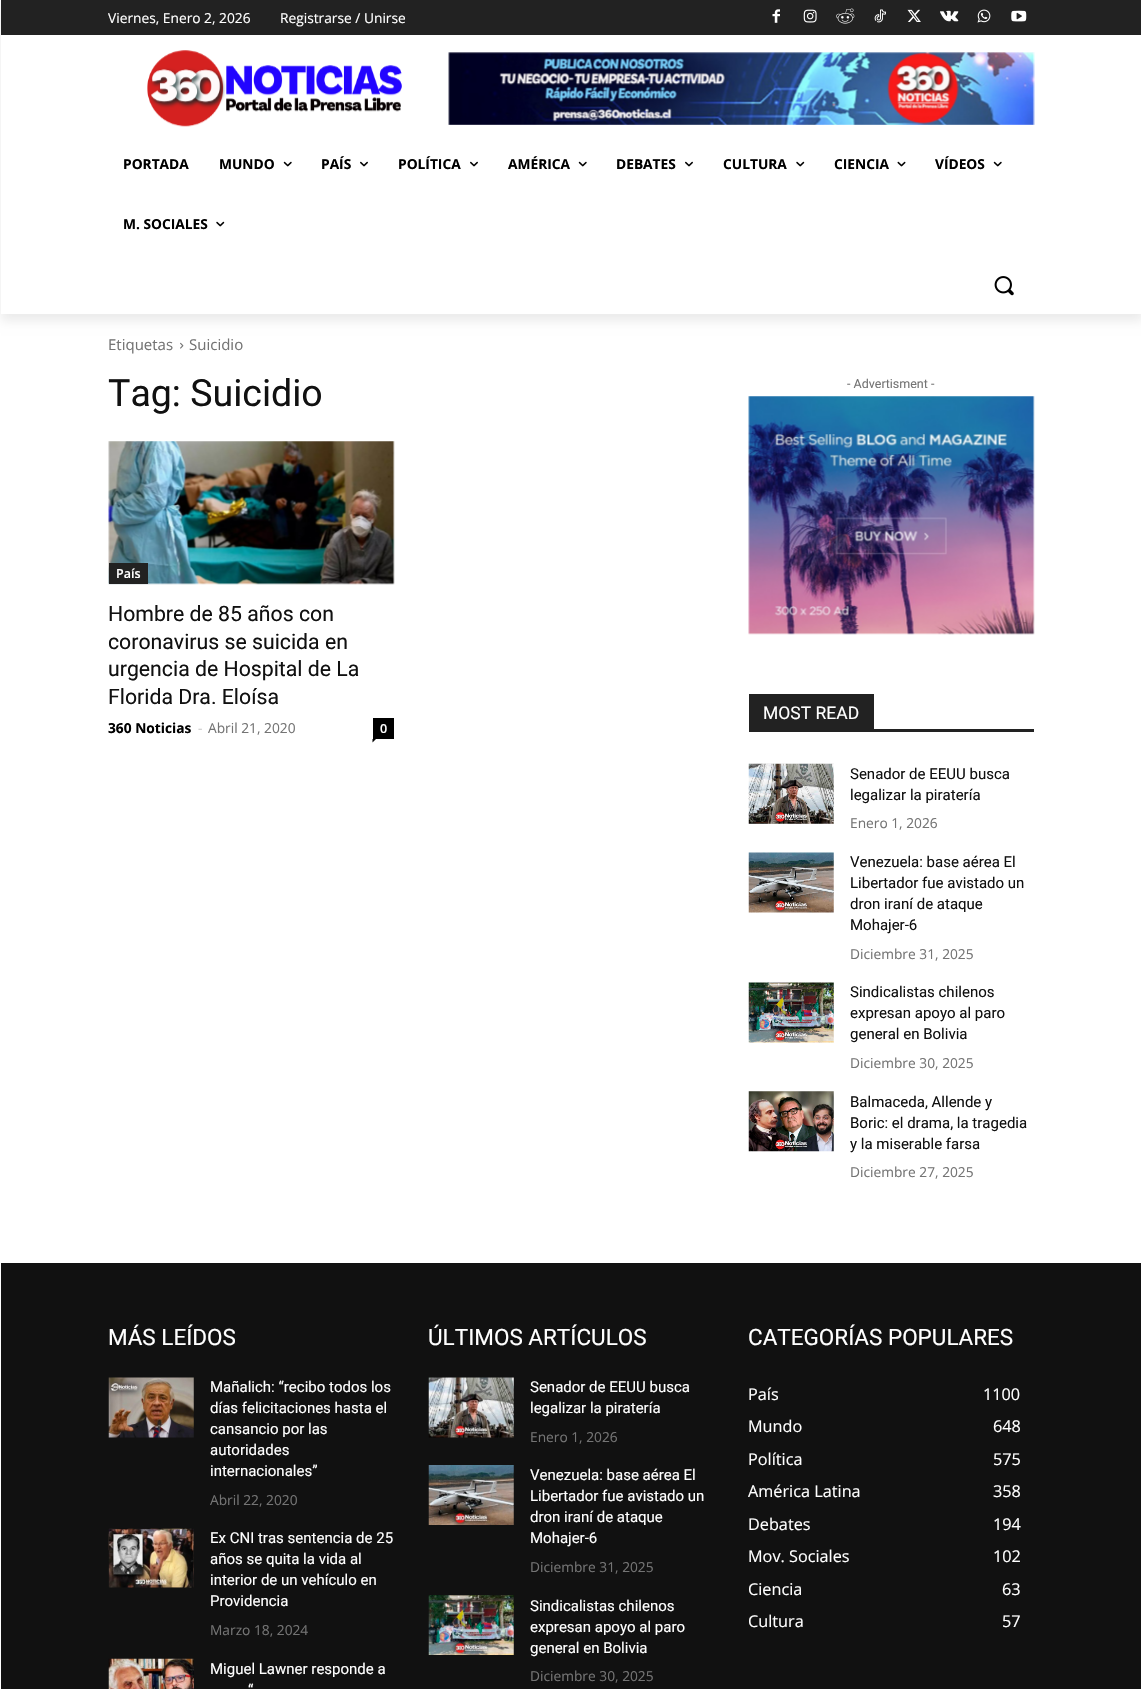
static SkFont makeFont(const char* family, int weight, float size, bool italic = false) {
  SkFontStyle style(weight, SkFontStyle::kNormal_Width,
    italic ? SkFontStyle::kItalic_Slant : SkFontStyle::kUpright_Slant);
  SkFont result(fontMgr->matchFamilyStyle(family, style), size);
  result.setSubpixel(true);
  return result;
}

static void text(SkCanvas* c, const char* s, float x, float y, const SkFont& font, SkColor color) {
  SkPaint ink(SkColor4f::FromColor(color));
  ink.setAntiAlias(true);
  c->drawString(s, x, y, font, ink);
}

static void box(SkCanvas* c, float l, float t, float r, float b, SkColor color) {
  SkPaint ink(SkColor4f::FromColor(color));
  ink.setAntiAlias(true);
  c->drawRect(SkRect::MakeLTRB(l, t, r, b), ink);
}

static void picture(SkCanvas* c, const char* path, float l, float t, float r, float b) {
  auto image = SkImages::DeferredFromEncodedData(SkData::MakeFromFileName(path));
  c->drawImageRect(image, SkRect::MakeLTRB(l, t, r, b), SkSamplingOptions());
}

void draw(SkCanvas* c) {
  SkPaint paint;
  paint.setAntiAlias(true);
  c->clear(0xffffffff);
  box(c, 1, 0, 1141, 35, 0xff222222);
  picture(c, "img_01.png", 772, 9, 780, 23);
  picture(c, "img_02.png", 803, 9, 817, 23);
  picture(c, "img_03.png", 836, 8, 855, 24);
  picture(c, "img_04.png", 874, 9, 886, 23);
  picture(c, "img_05.png", 907, 9, 921, 22);
  picture(c, "img_06.png", 940, 10, 959, 22);
  picture(c, "img_07.png", 977, 9, 991, 23);
  picture(c, "img_08.png", 1011, 10, 1027, 22);
  picture(c, "img_09.png", 147, 50, 402, 127);
  picture(c, "img_10.png", 448, 52, 1035, 125);
  c->save();
  c->clipPath(SkPathBuilder(SkPathFillType::kEvenOdd).moveTo(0, 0).lineTo(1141, 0).lineTo(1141, 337).lineTo(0, 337).close().moveTo(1, 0).lineTo(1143, 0).lineTo(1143, 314).lineTo(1, 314).close().detach(), true);
  paint.setColor(0x14000000);
  paint.setMaskFilter(SkMaskFilter::MakeBlur(kNormal_SkBlurStyle, 5));
  c->drawRect(SkRect::MakeLTRB(1, 8, 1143, 321), paint);
  paint.setMaskFilter(nullptr);
  c->restore();
  SkFont face1 = makeFont("Open Sans", 400, 13.75f);
  text(c, "Viernes, Enero 2, 2026", 108, 23, face1, 0xffffffff);
  text(c, "Registrarse / Unirse", 280, 23, face1, 0xffffffff);
  SkFont face2 = makeFont("Open Sans", 700, 13.75f);
  text(c, "PORTADA", 123, 169, face2, 0xff000000);
  text(c, "MUNDO", 219, 169, face2, 0xff000000);
  picture(c, "img_11.png", 283, 161, 292, 167);
  text(c, "PAÍS", 321, 169, face2, 0xff000000);
  picture(c, "img_12.png", 360, 161, 368, 167);
  text(c, "POLÍTICA", 398, 169, face2, 0xff000000);
  picture(c, "img_12.png", 470, 161, 478, 167);
  text(c, "AMÉRICA", 508, 169, face2, 0xff000000);
  picture(c, "img_11.png", 578, 161, 587, 167);
  text(c, "DEBATES", 616, 169, face2, 0xff000000);
  picture(c, "img_12.png", 685, 161, 693, 167);
  text(c, "CULTURA", 723, 169, face2, 0xff000000);
  picture(c, "img_13.png", 796, 161, 805, 167);
  text(c, "CIENCIA", 834, 169, face2, 0xff000000);
  picture(c, "img_14.png", 897, 161, 906, 167);
  text(c, "VÍDEOS", 935, 169, face2, 0xff000000);
  picture(c, "img_11.png", 993, 161, 1002, 167);
  text(c, "M. SOCIALES", 123, 229, face2, 0xff000000);
  picture(c, "img_13.png", 216, 221, 225, 227);
  picture(c, "img_15.png", 994, 276, 1014, 296);
  SkFont face3 = makeFont("Open Sans", 400, 15);
  text(c, "Etiquetas", 108, 350, face3, 0xff747474);
  picture(c, "img_16.png", 180, 342, 184, 349);
  text(c, "Suicidio", 189, 350, face3, 0xff747474);
  SkFont face4 = makeFont("Roboto", 400, 37.5f);
  text(c, "Tag: Suicidio", 108, 406, face4, 0xff111111);
  picture(c, "img_17.png", 108, 441, 395, 585);
  box(c, 109, 563, 148, 584, 0xff222222);
  SkFont face5 = makeFont("Open Sans", 600, 12.5f);
  text(c, "País", 116, 578, face5, 0xffffffff);
  SkFont face6 = makeFont("Roboto", 400, 21.25f);
  text(c, "Hombre de 85 años con", 108, 621, face6, 0xff111111);
  text(c, "coronavirus se suicida en", 108, 649, face6, 0xff111111);
  text(c, "urgencia de Hospital de La", 108, 676, face6, 0xff111111);
  text(c, "Florida Dra. Eloísa", 108, 704, face6, 0xff111111);
  text(c, "360 Noticias", 108, 733, face2, 0xff000000);
  text(c, "-", 198, 733, face1, 0xffcccccc);
  text(c, "Abril 21, 2020", 208, 733, face1, 0xff747474);
  box(c, 373, 718, 394, 739, 0xff000000);
  text(c, "0", 380, 733, face5, 0xffffffff);
  paint.setColor(0xff000000);
  c->drawPath(SkPathBuilder().moveTo(372.5f, 739).lineTo(376, 739).lineTo(372.5f, 742.5f).close().detach(), paint);
  SkFont face7 = makeFont("Roboto", 400, 12.5f);
  text(c, "- Advertisment -", 847, 388, face7, 0xff747474);
  picture(c, "img_18.png", 748, 396, 1035, 635);
  box(c, 749, 729, 1034, 732, 0xff222222);
  box(c, 749, 694, 874, 729, 0xff222222);
  SkFont face8 = makeFont("Roboto", 400, 17.5f);
  text(c, "MOST READ", 763, 719, face8, 0xffffffff);
  picture(c, "img_19.png", 748, 763, 834, 824);
  SkFont face9 = makeFont("Roboto", 400, 15);
  text(c, "Senador de EEUU busca", 850, 779, face9, 0xff111111);
  text(c, "legalizar la piratería", 850, 800, face9, 0xff111111);
  text(c, "Enero 1, 2026", 850, 828, face1, 0xff747474);
  picture(c, "img_20.png", 748, 852, 834, 913);
  text(c, "Venezuela: base aérea El", 850, 867, face9, 0xff111111);
  text(c, "Libertador fue avistado un", 850, 888, face9, 0xff111111);
  text(c, "dron iraní de ataque", 850, 909, face9, 0xff111111);
  text(c, "Mohajer-6", 850, 930, face9, 0xff111111);
  text(c, "Diciembre 31, 2025", 850, 959, face1, 0xff747474);
  picture(c, "img_21.png", 748, 982, 834, 1043);
  text(c, "Sindicalistas chilenos", 850, 997, face9, 0xff111111);
  text(c, "expresan apoyo al paro", 850, 1018, face9, 0xff111111);
  text(c, "general en Bolivia", 850, 1039, face9, 0xff111111);
  text(c, "Diciembre 30, 2025", 850, 1068, face1, 0xff747474);
  picture(c, "img_22.png", 748, 1091, 834, 1152);
  text(c, "Balmaceda, Allende y", 850, 1107, face9, 0xff111111);
  text(c, "Boric: el drama, la tragedia", 850, 1128, face9, 0xff111111);
  text(c, "y la miserable farsa", 850, 1149, face9, 0xff111111);
  text(c, "Diciembre 27, 2025", 850, 1177, face1, 0xff747474);
  box(c, 1, 1263, 1141, 1689, 0xff111111);
  SkFont face10 = makeFont("Roboto", 400, 22.5f);
  text(c, "MÁS LEÍDOS", 108, 1345, face10, 0xffffffff);
  picture(c, "img_23.png", 108, 1377, 194, 1438);
  text(c, "Mañalich: “recibo todos los", 210, 1392, face9, 0xffffffff);
  text(c, "días felicitaciones hasta el", 210, 1413, face9, 0xffffffff);
  text(c, "cansancio por las", 210, 1434, face9, 0xffffffff);
  text(c, "autoridades", 210, 1455, face9, 0xffffffff);
  text(c, "internacionales”", 210, 1476, face9, 0xffffffff);
  text(c, "Abril 22, 2020", 210, 1505, face1, 0xff747474);
  picture(c, "img_24.png", 108, 1528, 194, 1588);
  text(c, "Ex CNI tras sentencia de 25", 210, 1543, face9, 0xffffffff);
  text(c, "años se quita la vida al", 210, 1564, face9, 0xffffffff);
  text(c, "interior de un vehículo en", 210, 1585, face9, 0xffffffff);
  text(c, "Providencia", 210, 1606, face9, 0xffffffff);
  text(c, "Marzo 18, 2024", 210, 1635, face1, 0xff747474);
  picture(c, "img_25.png", 108, 1658, 194, 1689);
  text(c, "Miguel Lawner responde a", 210, 1674, face9, 0xffffffff);
  text(c, "“", 248, 1695, face9, 0xffffffff);
  text(c, "ÚLTIMOS ARTÍCULOS", 428, 1345, face10, 0xffffffff);
  picture(c, "img_26.png", 428, 1377, 514, 1438);
  text(c, "Senador de EEUU busca", 530, 1392, face9, 0xffffffff);
  text(c, "legalizar la piratería", 530, 1413, face9, 0xffffffff);
  text(c, "Enero 1, 2026", 530, 1442, face1, 0xff747474);
  picture(c, "img_27.png", 428, 1465, 514, 1525);
  text(c, "Venezuela: base aérea El", 530, 1480, face9, 0xffffffff);
  text(c, "Libertador fue avistado un", 530, 1501, face9, 0xffffffff);
  text(c, "dron iraní de ataque", 530, 1522, face9, 0xffffffff);
  text(c, "Mohajer-6", 530, 1543, face9, 0xffffffff);
  text(c, "Diciembre 31, 2025", 530, 1572, face1, 0xff747474);
  picture(c, "img_28.png", 428, 1595, 514, 1655);
  text(c, "Sindicalistas chilenos", 530, 1611, face9, 0xffffffff);
  text(c, "expresan apoyo al paro", 530, 1632, face9, 0xffffffff);
  text(c, "general en Bolivia", 530, 1653, face9, 0xffffffff);
  text(c, "Diciembre 30, 2025", 530, 1681, face1, 0xff747474);
  text(c, "CATEGORÍAS POPULARES", 748, 1345, face10, 0xffffffff);
  SkFont face11 = makeFont("Open Sans", 400, 16.25f);
  text(c, "País", 748, 1400, face11, 0xffffffff);
  text(c, "1100", 983, 1400, face11, 0xffffffff);
  text(c, "Mundo", 748, 1432, face11, 0xffffffff);
  text(c, "648", 993, 1432, face11, 0xffffffff);
  text(c, "Política", 748, 1465, face11, 0xffffffff);
  text(c, "575", 993, 1465, face11, 0xffffffff);
  text(c, "América Latina", 748, 1497, face11, 0xffffffff);
  text(c, "358", 993, 1497, face11, 0xffffffff);
  text(c, "Debates", 748, 1530, face11, 0xffffffff);
  text(c, "194", 993, 1530, face11, 0xffffffff);
  text(c, "Mov. Sociales", 748, 1562, face11, 0xffffffff);
  text(c, "102", 993, 1562, face11, 0xffffffff);
  text(c, "Ciencia", 748, 1595, face11, 0xffffffff);
  text(c, "63", 1002, 1595, face11, 0xffffffff);
  text(c, "Cultura", 748, 1627, face11, 0xffffffff);
  text(c, "57", 1002, 1627, face11, 0xffffffff);
}
